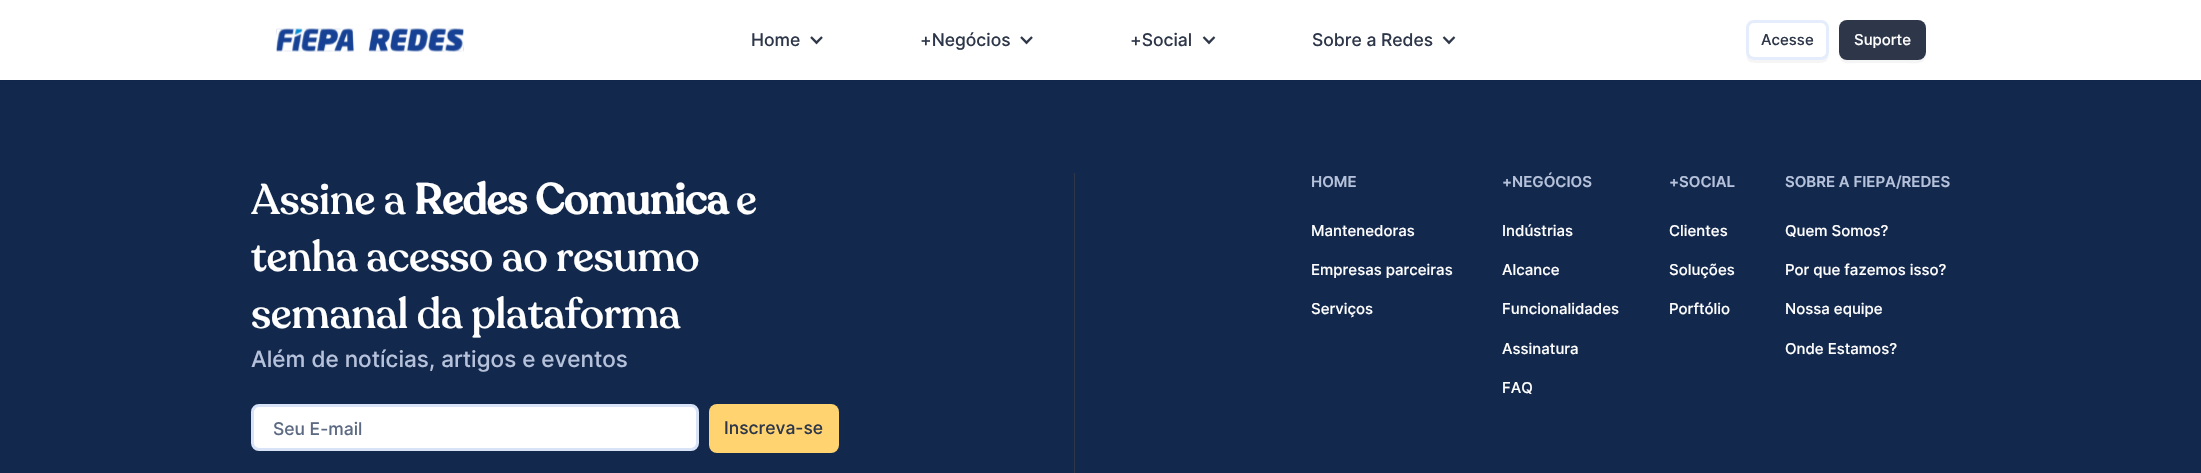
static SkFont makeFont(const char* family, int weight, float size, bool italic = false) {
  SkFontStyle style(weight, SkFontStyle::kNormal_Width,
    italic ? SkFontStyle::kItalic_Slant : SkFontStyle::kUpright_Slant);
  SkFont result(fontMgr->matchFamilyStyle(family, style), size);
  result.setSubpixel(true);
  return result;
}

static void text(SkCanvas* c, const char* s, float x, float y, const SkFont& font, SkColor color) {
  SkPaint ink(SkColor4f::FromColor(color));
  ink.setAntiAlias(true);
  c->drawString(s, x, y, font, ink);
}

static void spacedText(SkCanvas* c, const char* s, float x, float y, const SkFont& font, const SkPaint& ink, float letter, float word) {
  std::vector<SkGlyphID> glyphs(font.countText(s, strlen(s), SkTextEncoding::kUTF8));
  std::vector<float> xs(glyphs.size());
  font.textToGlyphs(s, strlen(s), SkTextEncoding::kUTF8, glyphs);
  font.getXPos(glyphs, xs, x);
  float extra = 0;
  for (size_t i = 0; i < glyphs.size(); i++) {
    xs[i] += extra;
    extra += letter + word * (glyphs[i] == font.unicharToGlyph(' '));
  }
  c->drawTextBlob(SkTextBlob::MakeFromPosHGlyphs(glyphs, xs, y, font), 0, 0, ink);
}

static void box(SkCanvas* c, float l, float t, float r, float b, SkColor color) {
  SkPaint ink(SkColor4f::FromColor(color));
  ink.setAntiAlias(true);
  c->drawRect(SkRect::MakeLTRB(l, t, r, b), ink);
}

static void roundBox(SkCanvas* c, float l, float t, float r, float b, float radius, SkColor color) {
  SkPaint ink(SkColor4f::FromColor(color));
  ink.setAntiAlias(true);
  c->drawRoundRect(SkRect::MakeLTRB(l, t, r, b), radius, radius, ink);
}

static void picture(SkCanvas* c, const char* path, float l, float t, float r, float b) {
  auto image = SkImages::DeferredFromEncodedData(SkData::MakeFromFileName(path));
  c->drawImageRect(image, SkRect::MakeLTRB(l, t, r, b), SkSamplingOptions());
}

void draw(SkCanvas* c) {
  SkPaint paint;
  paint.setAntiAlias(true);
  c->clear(0xff12284c);
  box(c, 0, 80, 2201, 81, 0xff112649);
  box(c, 0, 0, 2201, 80, 0xffffffff);
  picture(c, "img_01.png", 276, 28, 464, 52);
  SkFont face1 = makeFont("Inter", 500, 17.5f);
  text(c, "Home", 751, 46, face1, 0xff2e3749);
  picture(c, "img_02.png", 810, 36, 823, 45);
  text(c, "+Negócios", 920, 46, face1, 0xff2e3749);
  picture(c, "img_02.png", 1020, 36, 1033, 45);
  text(c, "+Social", 1130, 46, face1, 0xff2e3749);
  picture(c, "img_03.png", 1202, 36, 1216, 45);
  text(c, "Sobre a Redes", 1312, 46, face1, 0xff2e3749);
  picture(c, "img_03.png", 1442, 36, 1456, 45);
  paint.setColor(0xfff5f5f5);
  c->drawPath(SkPathBuilder().moveTo(1746, 29).lineTo(1746, 47).cubicTo(1746, 64, 1748, 63, 1765, 63).lineTo(1810, 63).cubicTo(1827, 63, 1829, 64, 1829, 47).lineTo(1829, 29).lineTo(1829, 52).cubicTo(1829, 57, 1825, 60, 1821, 60).lineTo(1754, 60).cubicTo(1750, 60, 1746, 57, 1746, 52).close().detach(), paint);
  paint.setStyle(SkPaint::kStroke_Style);
  paint.setStrokeWidth(3);
  paint.setColor(0xffe5ecfb);
  c->drawRoundRect(SkRect::MakeLTRB(1747.5f, 21.5f, 1827.5f, 58.5f), 6.5f, 6.5f, paint);
  SkFont face2 = makeFont("Inter", 500, 15);
  text(c, "Acesse", 1761, 45, face2, 0xff2e3749);
  paint.setStyle(SkPaint::kFill_Style);
  paint.setColor(0xfff5f5f5);
  c->drawPath(SkPathBuilder().moveTo(1839, 54).cubicTo(1839, 66, 1852, 63, 1859, 63).lineTo(1906, 63).cubicTo(1913, 63, 1926, 66, 1926, 54).cubicTo(1925, 58, 1922, 60, 1919, 60).lineTo(1846, 60).cubicTo(1843, 60, 1840, 58, 1839, 54).close().detach(), paint);
  roundBox(c, 1839, 20, 1926, 60, 8, 0xff2e3749);
  text(c, "Suporte", 1854, 45, face2, 0xffffffff);
  SkFont face3 = makeFont("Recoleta", 500, 42.5f);
  paint.setColor(0xffffffff);
  spacedText(c, "Assine a", 251, 214, face3, paint, -0.4f, 0);
  SkFont face4 = makeFont("Recoleta", 700, 42.5f);
  spacedText(c, "Redes Comunica", 414, 214, face4, paint, -0.4f, 0);
  spacedText(c, "e", 736, 214, face3, paint, -0.4f, 0);
  spacedText(c, "tenha acesso ao resumo", 251, 271, face3, paint, -0.4f, 0);
  spacedText(c, "semanal da plataforma", 251, 328, face3, paint, -0.4f, 0);
  SkFont face5 = makeFont("Inter", 500, 22.5f);
  text(c, "Além de notícias, artigos e eventos", 251, 367, face5, 0xffb6c2db);
  c->drawRoundRect(SkRect::MakeLTRB(252.5f, 405.5f, 697.5f, 449.5f), 6.5f, 6.5f, paint);
  paint.setStyle(SkPaint::kStroke_Style);
  paint.setColor(0xffd8e3f8);
  c->drawRoundRect(SkRect::MakeLTRB(252.5f, 405.5f, 697.5f, 449.5f), 6.5f, 6.5f, paint);
  text(c, "Seu E-mail", 273, 435, face1, 0xff5d6a83);
  roundBox(c, 709, 404, 839, 453, 8, 0xffffd470);
  text(c, "Inscreva-se", 724, 434, face1, 0xff2e3749);
  box(c, 1074, 173, 1075, 473, 0xff2e3749);
  SkFont face6 = makeFont("Inter", 600, 15);
  text(c, "HOME", 1311, 187, face6, 0xffb6c2db);
  text(c, "Mantenedoras", 1311, 236, face2, 0xffffffff);
  text(c, "Empresas parceiras", 1311, 275, face2, 0xffffffff);
  text(c, "Serviços", 1311, 314, face2, 0xffffffff);
  text(c, "+NEGÓCIOS", 1502, 187, face6, 0xffb6c2db);
  text(c, "Indústrias", 1502, 236, face2, 0xffffffff);
  text(c, "Alcance", 1502, 275, face2, 0xffffffff);
  text(c, "Funcionalidades", 1502, 314, face2, 0xffffffff);
  text(c, "Assinatura", 1502, 354, face2, 0xffffffff);
  text(c, "FAQ", 1502, 393, face2, 0xffffffff);
  text(c, "+SOCIAL", 1669, 187, face6, 0xffb6c2db);
  text(c, "Clientes", 1669, 236, face2, 0xffffffff);
  text(c, "Soluções", 1669, 275, face2, 0xffffffff);
  text(c, "Porftólio", 1669, 314, face2, 0xffffffff);
  text(c, "SOBRE A FIEPA/REDES", 1785, 187, face6, 0xffb6c2db);
  text(c, "Quem Somos?", 1785, 236, face2, 0xffffffff);
  text(c, "Por que fazemos isso?", 1785, 275, face2, 0xffffffff);
  text(c, "Nossa equipe", 1785, 314, face2, 0xffffffff);
  text(c, "Onde Estamos?", 1785, 354, face2, 0xffffffff);
}
